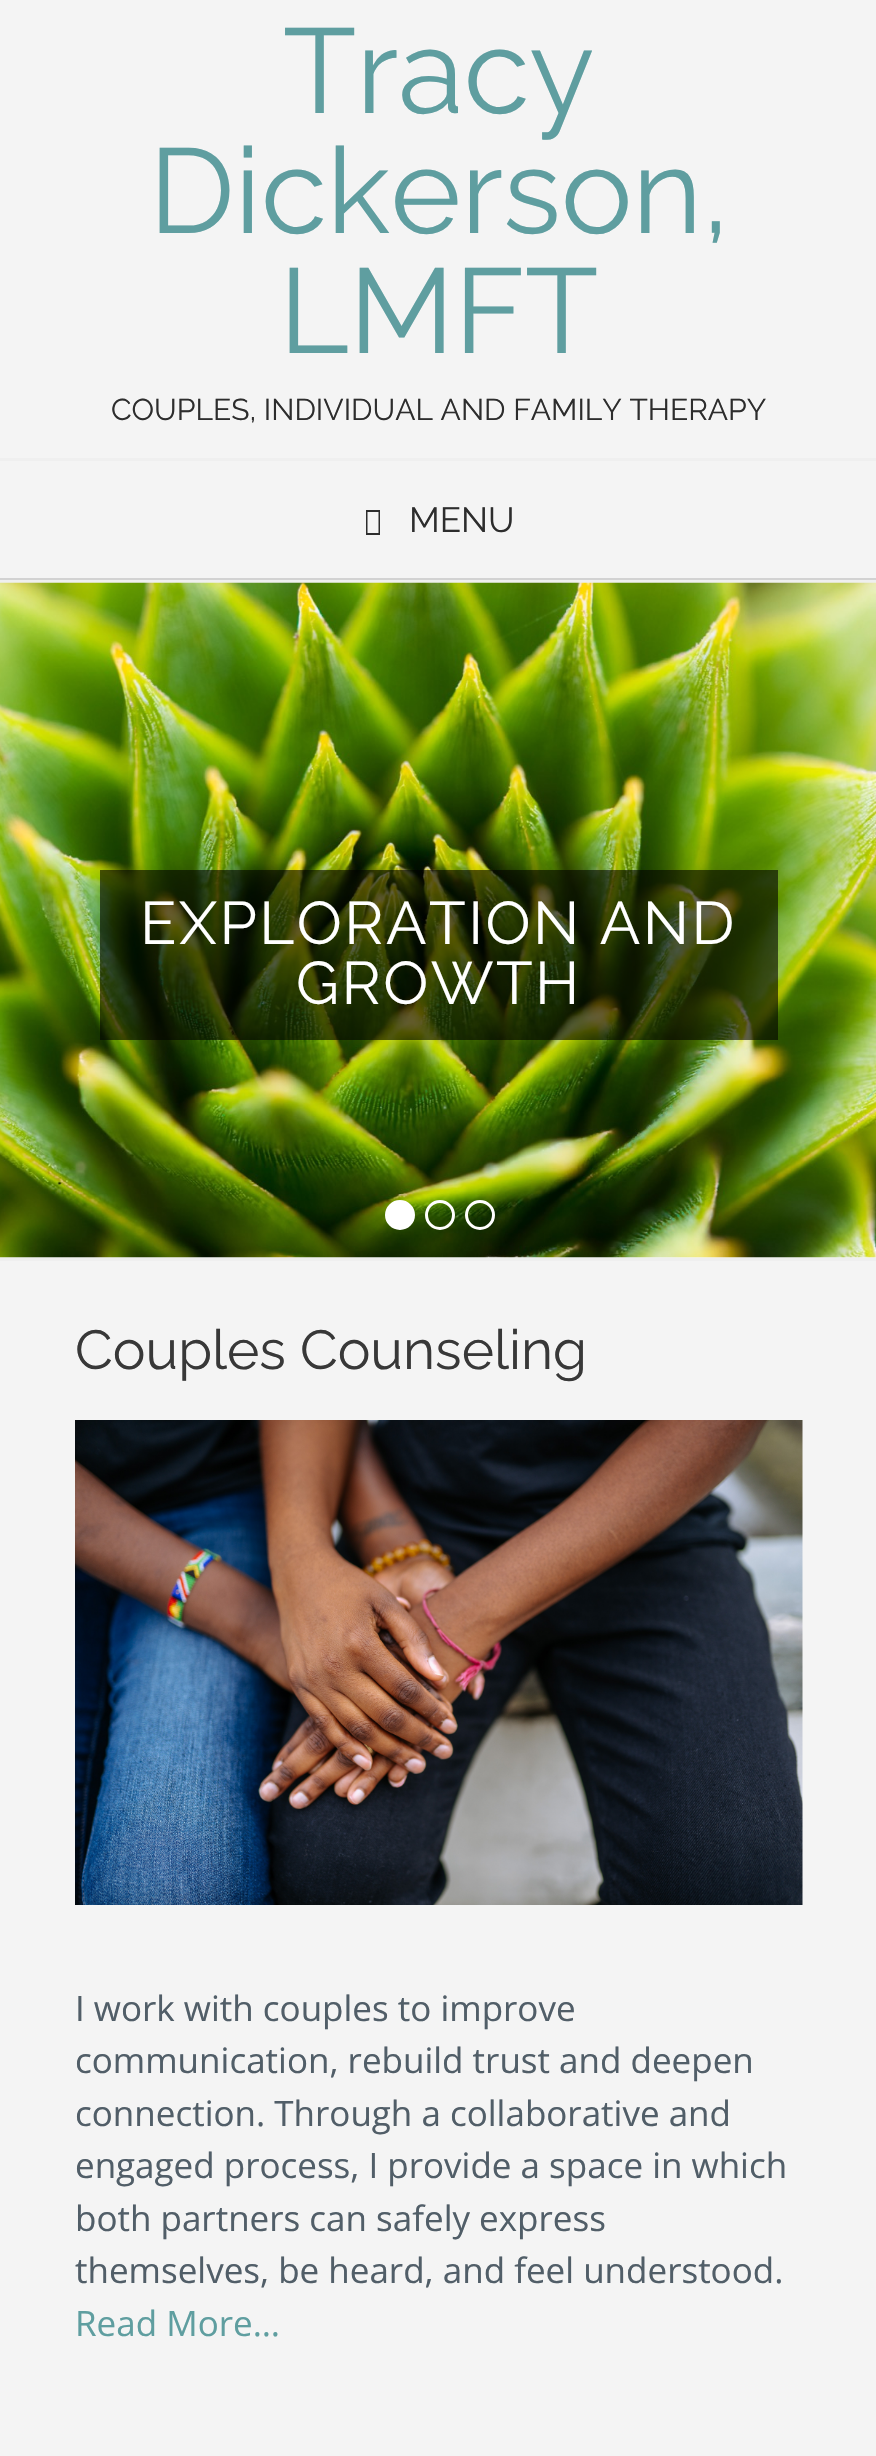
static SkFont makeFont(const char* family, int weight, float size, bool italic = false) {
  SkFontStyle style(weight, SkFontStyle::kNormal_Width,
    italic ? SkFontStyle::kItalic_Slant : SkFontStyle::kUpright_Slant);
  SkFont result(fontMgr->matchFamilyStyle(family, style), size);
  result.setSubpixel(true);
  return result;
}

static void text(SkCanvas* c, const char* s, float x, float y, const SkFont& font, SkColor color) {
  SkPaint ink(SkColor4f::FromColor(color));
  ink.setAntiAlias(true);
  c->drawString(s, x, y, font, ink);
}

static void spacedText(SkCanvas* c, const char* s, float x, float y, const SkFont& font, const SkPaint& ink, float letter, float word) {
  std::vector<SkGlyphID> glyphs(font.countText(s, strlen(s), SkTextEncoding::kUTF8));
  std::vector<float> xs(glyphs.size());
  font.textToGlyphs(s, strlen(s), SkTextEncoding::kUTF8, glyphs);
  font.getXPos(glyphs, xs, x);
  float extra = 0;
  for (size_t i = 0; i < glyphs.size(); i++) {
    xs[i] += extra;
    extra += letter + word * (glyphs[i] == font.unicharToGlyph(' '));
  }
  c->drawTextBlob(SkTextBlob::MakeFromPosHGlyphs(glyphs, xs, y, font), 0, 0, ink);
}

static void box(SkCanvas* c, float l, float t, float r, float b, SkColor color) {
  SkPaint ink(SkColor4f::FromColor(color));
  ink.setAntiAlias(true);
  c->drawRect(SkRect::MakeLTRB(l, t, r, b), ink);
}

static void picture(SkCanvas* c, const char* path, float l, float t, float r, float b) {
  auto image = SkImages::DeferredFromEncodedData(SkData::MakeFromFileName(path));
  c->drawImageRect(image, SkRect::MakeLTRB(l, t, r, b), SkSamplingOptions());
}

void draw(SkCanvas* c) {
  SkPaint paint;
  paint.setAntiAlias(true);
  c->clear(0xfff4f4f4);
  box(c, 0, 578, 876, 580, 0xffd2d2d2);
  SkFont face1 = makeFont("Raleway", 400, 120);
  text(c, "Tracy", 283, 113, face1, 0xff5f9ea0);
  text(c, "Dickerson,", 149, 233, face1, 0xff5f9ea0);
  text(c, "LMFT", 279, 353, face1, 0xff5f9ea0);
  SkFont face2 = makeFont("Raleway", 400, 30);
  text(c, "COUPLES, INDIVIDUAL AND FAMILY THERAPY", 111, 420, face2, 0xff2d2d2d);
  box(c, 0, 458, 876, 461, 0xffefefef);
  paint.setColor(0xff2d2d2d);
  c->drawPath(SkPathBuilder().moveTo(366, 535).lineTo(366, 510).lineTo(380, 510).lineTo(380, 535).close().moveTo(367.5f, 533).lineTo(378.5f, 533).lineTo(378.5f, 512).lineTo(367.5f, 512).close().detach(), paint);
  SkFont face3 = makeFont("Raleway", 400, 35);
  text(c, "MENU", 409, 532, face3, 0xff2d2d2d);
  box(c, 0, 580, 876, 583, 0xffefefef);
  box(c, 0, 1258, 876, 1261, 0xffefefef);
  picture(c, "img_01.png", 0, 582, 876, 1258);
  box(c, 100, 870, 778, 1040, 0x99000000);
  SkFont face4 = makeFont("Raleway", 400, 60);
  paint.setColor(0xffffffff);
  spacedText(c, "EXPLORATION AND", 140, 944, face4, paint, 2.5f, 0);
  spacedText(c, "GROWTH", 296, 1004, face4, paint, 2.5f, 0);
  c->drawCircle(400, 1215, 13.5f, paint);
  paint.setStyle(SkPaint::kStroke_Style);
  paint.setStrokeWidth(3);
  c->drawCircle(400, 1215, 13.5f, paint);
  c->drawCircle(440, 1215, 13.5f, paint);
  c->drawCircle(480, 1215, 13.5f, paint);
  SkFont face5 = makeFont("Raleway", 400, 55);
  text(c, "Couples Counseling", 75, 1369, face5, 0xff383838);
  picture(c, "img_02.png", 75, 1420, 803, 1905);
  SkFont face6 = makeFont("Open Sans", 400, 35);
  text(c, "I work with couples to improve", 75, 2021, face6, 0xff515e68);
  text(c, "communication, rebuild trust and deepen", 75, 2073, face6, 0xff515e68);
  text(c, "connection. Through a collaborative and", 75, 2126, face6, 0xff515e68);
  text(c, "engaged process, I provide a space in which", 75, 2178, face6, 0xff515e68);
  text(c, "both partners can safely express", 75, 2231, face6, 0xff515e68);
  text(c, "themselves, be heard, and feel understood.", 75, 2283, face6, 0xff515e68);
  text(c, "Read More…", 75, 2336, face6, 0xff5f9ea0);
}
